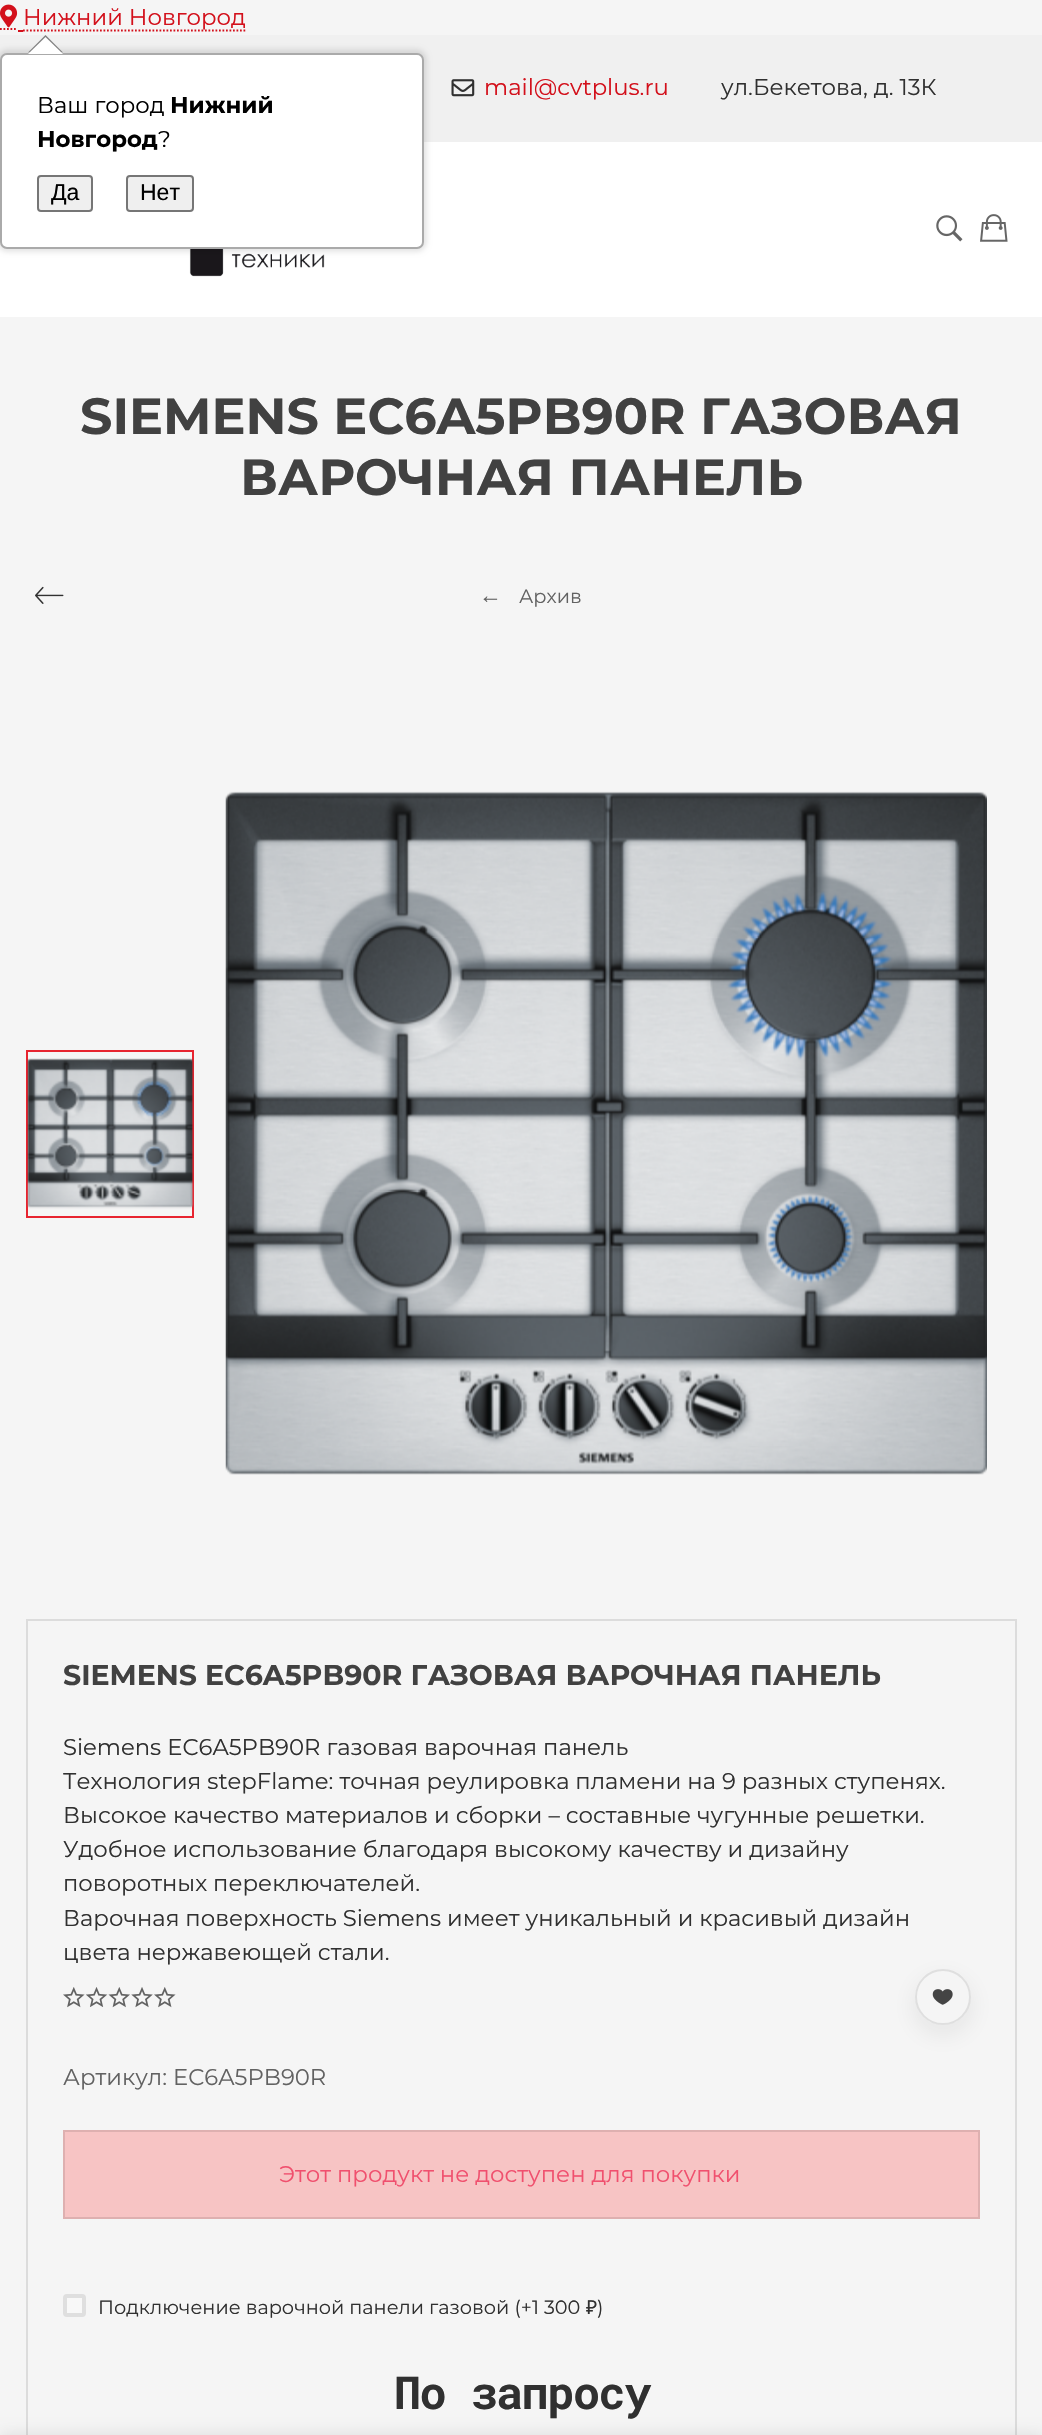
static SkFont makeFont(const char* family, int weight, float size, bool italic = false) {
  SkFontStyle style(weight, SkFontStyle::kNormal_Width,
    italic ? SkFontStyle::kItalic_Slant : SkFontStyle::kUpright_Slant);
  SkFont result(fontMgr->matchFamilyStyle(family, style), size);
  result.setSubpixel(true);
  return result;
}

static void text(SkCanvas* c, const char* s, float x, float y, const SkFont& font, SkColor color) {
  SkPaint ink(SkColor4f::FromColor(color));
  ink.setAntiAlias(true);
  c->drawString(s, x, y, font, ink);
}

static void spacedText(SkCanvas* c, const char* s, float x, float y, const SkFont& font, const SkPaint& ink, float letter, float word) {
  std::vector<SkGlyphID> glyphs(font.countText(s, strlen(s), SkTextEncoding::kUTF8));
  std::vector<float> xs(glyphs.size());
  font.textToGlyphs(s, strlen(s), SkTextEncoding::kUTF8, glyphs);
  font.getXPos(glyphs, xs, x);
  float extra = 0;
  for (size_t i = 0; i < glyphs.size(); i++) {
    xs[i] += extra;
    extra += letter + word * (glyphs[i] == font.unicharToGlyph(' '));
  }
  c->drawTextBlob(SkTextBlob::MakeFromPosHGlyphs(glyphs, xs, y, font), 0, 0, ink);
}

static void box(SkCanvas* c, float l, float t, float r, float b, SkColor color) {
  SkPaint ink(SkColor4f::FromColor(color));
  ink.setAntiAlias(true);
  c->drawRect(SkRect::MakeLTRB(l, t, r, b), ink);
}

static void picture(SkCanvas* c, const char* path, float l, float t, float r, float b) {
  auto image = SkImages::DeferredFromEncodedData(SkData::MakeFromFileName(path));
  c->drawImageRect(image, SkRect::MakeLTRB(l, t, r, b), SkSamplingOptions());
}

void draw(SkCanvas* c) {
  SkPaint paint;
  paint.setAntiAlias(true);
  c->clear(0xfff5f5f5);
  paint.setStyle(SkPaint::kStroke_Style);
  paint.setStrokeWidth(1.8f);
  paint.setColor(0xffd3101b);
  paint.setPathEffect(SkDashPathEffect::Make({{1.75f, 1.75f}}, 0));
  c->drawPath(SkPathBuilder().moveTo(0, 29).lineTo(17.5f, 29).detach(), paint);
  paint.setPathEffect(nullptr);
  box(c, 18, 30, 23, 32, 0xffd3101b);
  paint.setPathEffect(SkDashPathEffect::Make({{1.75f, 1.75f}}, 0));
  c->drawPath(SkPathBuilder().moveTo(23, 30.5f).lineTo(247, 30.5f).detach(), paint);
  paint.setPathEffect(nullptr);
  picture(c, "img_01.png", 0, 4, 18, 28);
  SkFont face1 = makeFont("Montserrat", 400, 22.75f);
  text(c, "Нижний Новгород", 23, 25, face1, 0xffd3101b);
  box(c, 0, 35, 1042, 142, 0xfff0f0f0);
  box(c, 0, 142, 1042, 317, 0xffffffff);
  picture(c, "img_05.png", 189, 249, 325, 277);
  paint.setStyle(SkPaint::kFill_Style);
  paint.setColor(0x1a000000);
  paint.setMaskFilter(SkMaskFilter::MakeBlur(kNormal_SkBlurStyle, 2.5f));
  c->drawRoundRect(SkRect::MakeLTRB(-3, 49, 427, 252), 11, 11, paint);
  paint.setMaskFilter(nullptr);
  paint.setColor(0xffffffff);
  c->drawRoundRect(SkRect::MakeLTRB(1, 54, 423, 248), 6, 6, paint);
  paint.setStyle(SkPaint::kStroke_Style);
  paint.setStrokeWidth(2);
  paint.setColor(0xffaaaaaa);
  c->drawRoundRect(SkRect::MakeLTRB(1, 54, 423, 248), 6, 6, paint);
  paint.setStyle(SkPaint::kFill_Style);
  paint.setColor(0xff808080);
  c->drawPath(SkPathBuilder().moveTo(63, 52.5f).lineTo(28, 52.5f).lineTo(45.5f, 35).close().detach(), paint);
  paint.setColor(0xffffffff);
  c->drawPath(SkPathBuilder().moveTo(63, 54).lineTo(28, 54).lineTo(45.5f, 37).close().detach(), paint);
  text(c, "Ваш город", 37, 113, face1, 0xff000000);
  SkFont face2 = makeFont("Montserrat", 700, 22.75f);
  text(c, "Нижний", 170, 113, face2, 0xff000000);
  text(c, "Новгород", 37, 147, face2, 0xff000000);
  text(c, "?", 158, 147, face1, 0xff000000);
  paint.setColor(0xffefefef);
  c->drawRoundRect(SkRect::MakeLTRB(38, 176, 92, 211), 3, 3, paint);
  paint.setStyle(SkPaint::kStroke_Style);
  paint.setColor(0xff767676);
  c->drawRoundRect(SkRect::MakeLTRB(38, 176, 92, 211), 3, 3, paint);
  SkFont face3 = makeFont("Liberation Sans", 400, 23);
  text(c, "Да", 51, 200, face3, 0xff000000);
  paint.setStyle(SkPaint::kFill_Style);
  paint.setColor(0xffefefef);
  c->drawRoundRect(SkRect::MakeLTRB(127, 176, 193, 211), 3, 3, paint);
  paint.setStyle(SkPaint::kStroke_Style);
  paint.setColor(0xff767676);
  c->drawRoundRect(SkRect::MakeLTRB(127, 176, 193, 211), 3, 3, paint);
  text(c, "Нет", 140, 200, face3, 0xff000000);
  picture(c, "img_02.png", 451, 79, 475, 97);
  text(c, "mail@cvtplus.ru", 484, 95, face1, 0xffd3101b);
  text(c, "ул.Бекетова, д. 13К", 721, 95, face1, 0xff303030);
  picture(c, "img_03.png", 936, 215, 963, 242);
  picture(c, "img_04.png", 980, 214, 1008, 242);
  SkFont face4 = makeFont("Montserrat", 700, 50.75f);
  text(c, "SIEMENS EC6A5PB90R ГАЗОВАЯ", 80, 434, face4, 0xff414141);
  text(c, "ВАРОЧНАЯ ПАНЕЛЬ", 240, 495, face4, 0xff414141);
  picture(c, "img_06.png", 35, 586, 64, 604);
  SkFont face5 = makeFont("Liberation Sans", 400, 22.75f);
  text(c, "←", 479, 603, face5, 0xff626262);
  SkFont face6 = makeFont("Montserrat", 400, 19.3f);
  text(c, "Архив", 519, 603, face6, 0xff626262);
  paint.setColor(0xffe7242f);
  c->drawRect(SkRect::MakeLTRB(27, 1051, 193, 1217), paint);
  picture(c, "img_07.png", 27, 1058, 194, 1209);
  picture(c, "img_08.png", 225, 791, 987, 1475);
  paint.setColor(0x1a000000);
  c->drawRect(SkRect::MakeLTRB(27, 1620, 1016, 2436), paint);
  SkFont face7 = makeFont("Montserrat", 700, 28.45f);
  text(c, "SIEMENS EC6A5PB90R ГАЗОВАЯ ВАРОЧНАЯ ПАНЕЛЬ", 63, 1685, face7, 0xff414141);
  text(c, "Siemens EC6A5PB90R газовая варочная панель", 63, 1755, face1, 0xff303030);
  text(c, "Технология stepFlame: точная реулировка пламени на 9 разных ступенях.", 63, 1789, face1, 0xff303030);
  text(c, "Высокое качество материалов и сборки – составные чугунные решетки.", 63, 1823, face1, 0xff303030);
  text(c, "Удобное использование благодаря высокому качеству и дизайну", 63, 1857, face1, 0xff303030);
  text(c, "поворотных переключателей.", 63, 1891, face1, 0xff303030);
  text(c, "Варочная поверхность Siemens имеет уникальный и красивый дизайн", 63, 1926, face1, 0xff303030);
  text(c, "цвета нержавеющей стали.", 63, 1960, face1, 0xff303030);
  picture(c, "img_09.png", 63, 1987, 85, 2008);
  picture(c, "img_10.png", 86, 1987, 108, 2007);
  picture(c, "img_11.png", 108, 1987, 130, 2008);
  picture(c, "img_12.png", 131, 1987, 153, 2008);
  picture(c, "img_09.png", 154, 1987, 176, 2008);
  c->save();
  c->clipPath(SkPathBuilder(SkPathFillType::kEvenOdd).moveTo(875, 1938).lineTo(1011, 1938).lineTo(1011, 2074).lineTo(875, 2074).close().moveTo(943, 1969).cubicTo(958.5f, 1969, 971, 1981.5f, 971, 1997).cubicTo(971, 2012.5f, 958.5f, 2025, 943, 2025).cubicTo(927.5f, 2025, 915, 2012.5f, 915, 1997).cubicTo(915, 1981.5f, 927.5f, 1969, 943, 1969).close().detach(), true);
  paint.setStyle(SkPaint::kFill_Style);
  paint.setColor(0x14191919);
  paint.setMaskFilter(SkMaskFilter::MakeBlur(kNormal_SkBlurStyle, 13));
  c->drawRoundRect(SkRect::MakeLTRB(915, 1978, 971, 2034), 28, 28, paint);
  paint.setMaskFilter(nullptr);
  c->restore();
  paint.setStyle(SkPaint::kStroke_Style);
  paint.setColor(0x1a191919);
  c->drawCircle(943, 1997, 27, paint);
  picture(c, "img_13.png", 932, 1989, 953, 2005);
  text(c, "Артикул: EC6A5PB90R", 63, 2085, face1, 0xff626262);
  paint.setStyle(SkPaint::kFill_Style);
  paint.setColor(0xfff7c4c4);
  c->drawRect(SkRect::MakeLTRB(64, 2131, 979, 2218), paint);
  paint.setStyle(SkPaint::kStroke_Style);
  paint.setColor(0xffdeb0b0);
  c->drawRect(SkRect::MakeLTRB(64, 2131, 979, 2218), paint);
  text(c, "Этот продукт не доступен для покупки", 279, 2182, face1, 0xfff0506e);
  paint.setStyle(SkPaint::kFill_Style);
  paint.setColor(0xfff8f8f8);
  c->drawRoundRect(SkRect::MakeLTRB(65, 2296, 84, 2315), 2, 2, paint);
  paint.setStyle(SkPaint::kStroke_Style);
  paint.setStrokeWidth(4);
  paint.setColor(0xffdfdfdf);
  c->drawRoundRect(SkRect::MakeLTRB(65, 2296, 84, 2315), 2, 2, paint);
  text(c, "Подключение варочной панели газовой (+1 300", 98, 2314, face6, 0xff303030);
  SkFont face8 = makeFont("Noto Sans", 400, 19.3f);
  text(c, "₽", 586, 2314, face8, 0xff303030);
  text(c, ")", 597, 2314, face6, 0xff303030);
  SkFont face9 = makeFont("Roboto Mono", 700, 45.5f);
  paint.setStyle(SkPaint::kFill_Style);
  paint.setColor(0xff303030);
  spacedText(c, "По запросу", 394, 2409, face9, paint, -1.75f, 0);
  paint.setColor(0x14000000);
  paint.setMaskFilter(SkMaskFilter::MakeBlur(kNormal_SkBlurStyle, 7));
  c->drawRect(SkRect::MakeLTRB(0, 2433, 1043, 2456), paint);
  paint.setMaskFilter(nullptr);
}
